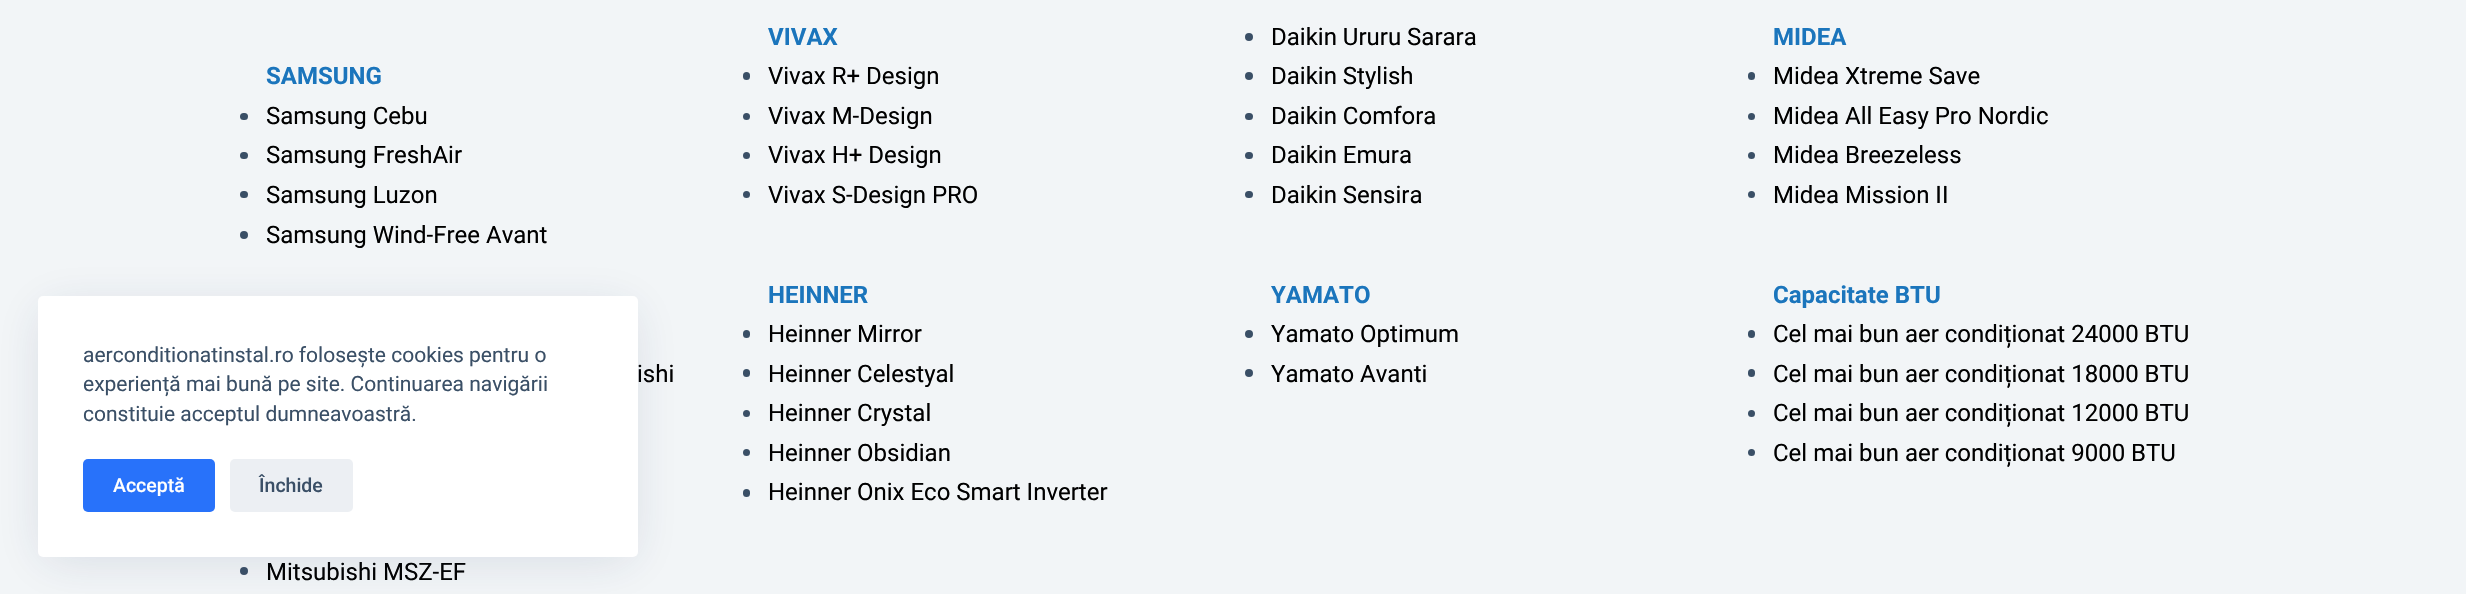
static SkFont makeFont(const char* family, int weight, float size, bool italic = false) {
  SkFontStyle style(weight, SkFontStyle::kNormal_Width,
    italic ? SkFontStyle::kItalic_Slant : SkFontStyle::kUpright_Slant);
  SkFont result(fontMgr->matchFamilyStyle(family, style), size);
  result.setSubpixel(true);
  return result;
}

static void text(SkCanvas* c, const char* s, float x, float y, const SkFont& font, SkColor color) {
  SkPaint ink(SkColor4f::FromColor(color));
  ink.setAntiAlias(true);
  c->drawString(s, x, y, font, ink);
}

static void roundBox(SkCanvas* c, float l, float t, float r, float b, float radius, SkColor color) {
  SkPaint ink(SkColor4f::FromColor(color));
  ink.setAntiAlias(true);
  c->drawRoundRect(SkRect::MakeLTRB(l, t, r, b), radius, radius, ink);
}

void draw(SkCanvas* c) {
  SkPaint paint;
  paint.setAntiAlias(true);
  c->clear(0xfff2f5f7);
  SkFont face1 = makeFont("Roboto", 700, 24);
  text(c, "SAMSUNG", 266, 84, face1, 0xff1b75bc);
  roundBox(c, 240, 113, 248, 120, 3.5f, 0xff3a4f66);
  SkFont face2 = makeFont("Roboto", 400, 24);
  text(c, "Samsung Cebu", 266, 124, face2, 0xff000000);
  roundBox(c, 240, 152, 248, 159, 3.5f, 0xff3a4f66);
  text(c, "Samsung FreshAir", 266, 163, face2, 0xff000000);
  roundBox(c, 240, 191, 248, 198, 3.5f, 0xff3a4f66);
  text(c, "Samsung Luzon", 266, 203, face2, 0xff000000);
  paint.setColor(0xff3a4f66);
  c->drawCircle(244, 235, 4, paint);
  text(c, "Samsung Wind-Free Avant", 266, 243, face2, 0xff000000);
  text(c, "ishi", 637, 382, face2, 0xff000000);
  c->drawCircle(244, 571, 4, paint);
  text(c, "Mitsubishi MSZ-EF", 266, 580, face2, 0xff000000);
  text(c, "VIVAX", 768, 45, face1, 0xff1b75bc);
  roundBox(c, 743, 72, 750, 80, 3.5f, 0xff3a4f66);
  text(c, "Vivax R+ Design", 768, 84, face2, 0xff000000);
  c->drawCircle(746.5f, 116.5f, 3.5f, paint);
  text(c, "Vivax M-Design", 768, 124, face2, 0xff000000);
  c->drawCircle(746.5f, 155.5f, 3.5f, paint);
  text(c, "Vivax H+ Design", 768, 163, face2, 0xff000000);
  c->drawCircle(746.5f, 194.5f, 3.5f, paint);
  text(c, "Vivax S-Design PRO", 768, 203, face2, 0xff000000);
  text(c, "HEINNER", 768, 303, face1, 0xff1b75bc);
  roundBox(c, 743, 330, 750, 338, 3.5f, 0xff3a4f66);
  text(c, "Heinner Mirror", 768, 342, face2, 0xff000000);
  roundBox(c, 743, 369, 750, 377, 3.5f, 0xff3a4f66);
  text(c, "Heinner Celestyal", 768, 382, face2, 0xff000000);
  c->drawCircle(746.5f, 413.5f, 3.5f, paint);
  text(c, "Heinner Crystal", 768, 421, face2, 0xff000000);
  c->drawCircle(746.5f, 452.5f, 3.5f, paint);
  text(c, "Heinner Obsidian", 768, 461, face2, 0xff000000);
  roundBox(c, 743, 489, 750, 497, 3.5f, 0xff3a4f66);
  text(c, "Heinner Onix Eco Smart Inverter", 768, 500, face2, 0xff000000);
  c->drawCircle(1249, 37, 4, paint);
  text(c, "Daikin Ururu Sarara", 1271, 45, face2, 0xff000000);
  c->drawCircle(1249, 76, 4, paint);
  text(c, "Daikin Stylish", 1271, 84, face2, 0xff000000);
  roundBox(c, 1245, 113, 1253, 120, 3.5f, 0xff3a4f66);
  text(c, "Daikin Comfora", 1271, 124, face2, 0xff000000);
  roundBox(c, 1245, 152, 1253, 159, 3.5f, 0xff3a4f66);
  text(c, "Daikin Emura", 1271, 163, face2, 0xff000000);
  roundBox(c, 1245, 191, 1253, 198, 3.5f, 0xff3a4f66);
  text(c, "Daikin Sensira", 1271, 203, face2, 0xff000000);
  text(c, "YAMATO", 1271, 303, face1, 0xff1b75bc);
  c->drawCircle(1249, 334, 4, paint);
  text(c, "Yamato Optimum", 1271, 342, face2, 0xff000000);
  c->drawCircle(1249, 373, 4, paint);
  text(c, "Yamato Avanti", 1271, 382, face2, 0xff000000);
  text(c, "MIDEA", 1773, 45, face1, 0xff1b75bc);
  roundBox(c, 1748, 72, 1755, 80, 3.5f, 0xff3a4f66);
  text(c, "Midea Xtreme Save", 1773, 84, face2, 0xff000000);
  c->drawCircle(1751.5f, 116.5f, 3.5f, paint);
  text(c, "Midea All Easy Pro Nordic", 1773, 124, face2, 0xff000000);
  c->drawCircle(1751.5f, 155.5f, 3.5f, paint);
  text(c, "Midea Breezeless", 1773, 163, face2, 0xff000000);
  c->drawCircle(1751.5f, 194.5f, 3.5f, paint);
  text(c, "Midea Mission II", 1773, 203, face2, 0xff000000);
  text(c, "Capacitate BTU", 1773, 303, face1, 0xff1b75bc);
  roundBox(c, 1748, 330, 1755, 338, 3.5f, 0xff3a4f66);
  text(c, "Cel mai bun aer condiționat 24000 BTU", 1773, 342, face2, 0xff000000);
  roundBox(c, 1748, 369, 1755, 377, 3.5f, 0xff3a4f66);
  text(c, "Cel mai bun aer condiționat 18000 BTU", 1773, 382, face2, 0xff000000);
  c->drawCircle(1751.5f, 413.5f, 3.5f, paint);
  text(c, "Cel mai bun aer condiționat 12000 BTU", 1773, 421, face2, 0xff000000);
  c->drawCircle(1751.5f, 452.5f, 3.5f, paint);
  text(c, "Cel mai bun aer condiționat 9000 BTU", 1773, 461, face2, 0xff000000);
  paint.setColor(0x26223865);
  paint.setMaskFilter(SkMaskFilter::MakeBlur(kNormal_SkBlurStyle, 22.5f));
  c->drawRect(SkRect::MakeLTRB(45, 311, 630, 557), paint);
  paint.setMaskFilter(nullptr);
  roundBox(c, 38, 296, 638, 557, 5, 0xffffffff);
  SkFont face3 = makeFont("Roboto", 400, 21);
  text(c, "aerconditionatinstal.ro folosește cookies pentru o", 83, 362, face3, 0xff3a4f66);
  text(c, "experiență mai bună pe site. Continuarea navigării", 83, 391, face3, 0xff3a4f66);
  text(c, "constituie acceptul dumneavoastră.", 83, 421, face3, 0xff3a4f66);
  roundBox(c, 83, 459, 215, 512, 5, 0xff2872fa);
  SkFont face4 = makeFont("Roboto", 500, 19.5f);
  text(c, "Acceptă", 113, 492, face4, 0xffffffff);
  roundBox(c, 230, 459, 353, 512, 5, 0xffeceff3);
  text(c, "Închide", 259, 492, face4, 0xff3a4f66);
}
